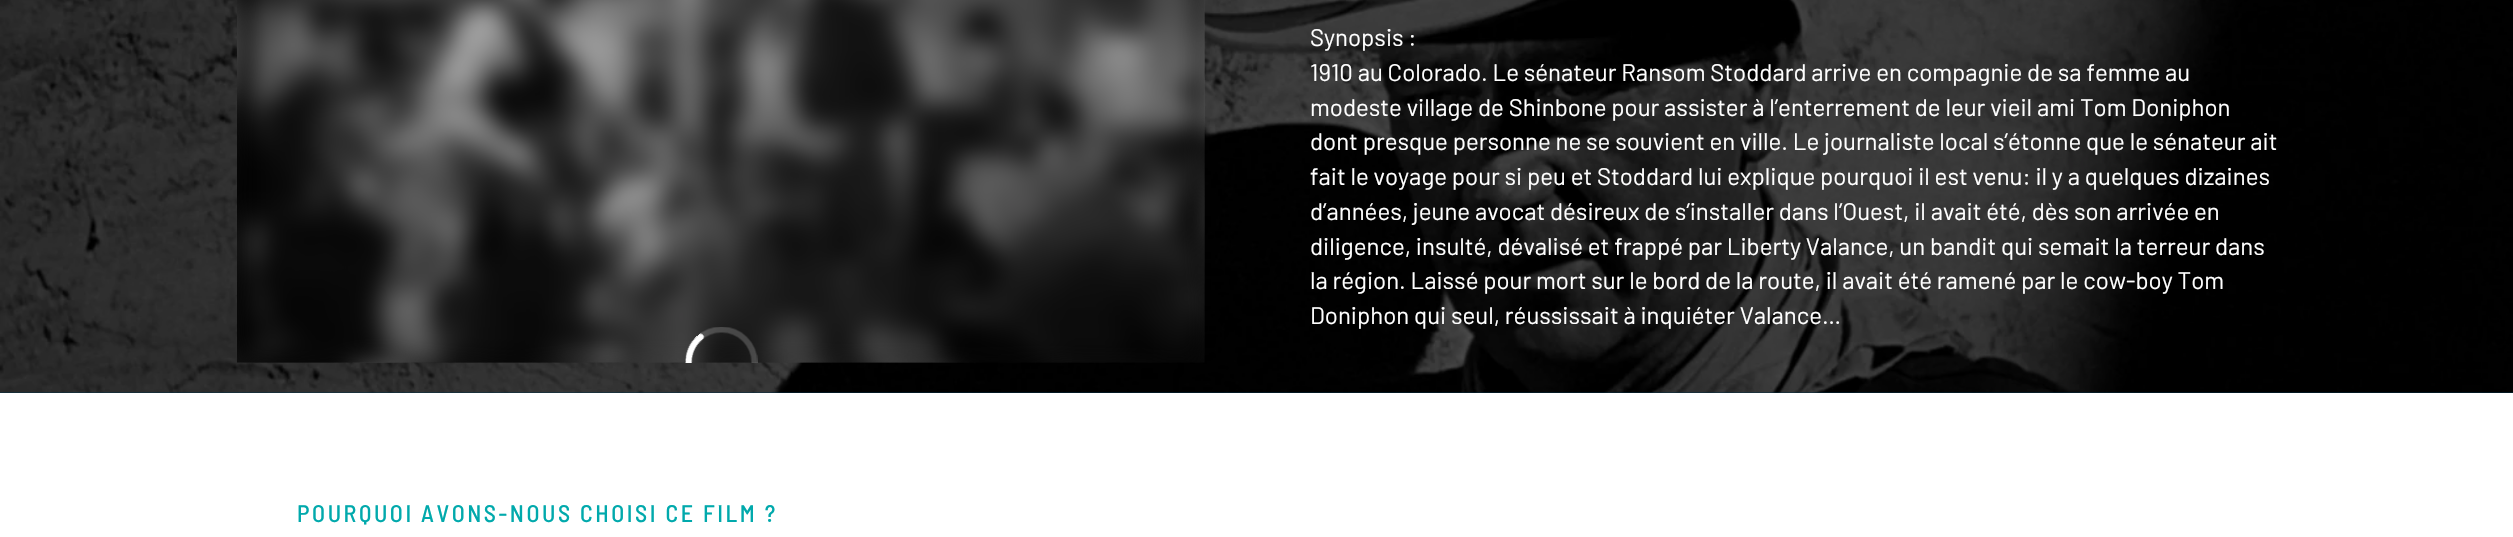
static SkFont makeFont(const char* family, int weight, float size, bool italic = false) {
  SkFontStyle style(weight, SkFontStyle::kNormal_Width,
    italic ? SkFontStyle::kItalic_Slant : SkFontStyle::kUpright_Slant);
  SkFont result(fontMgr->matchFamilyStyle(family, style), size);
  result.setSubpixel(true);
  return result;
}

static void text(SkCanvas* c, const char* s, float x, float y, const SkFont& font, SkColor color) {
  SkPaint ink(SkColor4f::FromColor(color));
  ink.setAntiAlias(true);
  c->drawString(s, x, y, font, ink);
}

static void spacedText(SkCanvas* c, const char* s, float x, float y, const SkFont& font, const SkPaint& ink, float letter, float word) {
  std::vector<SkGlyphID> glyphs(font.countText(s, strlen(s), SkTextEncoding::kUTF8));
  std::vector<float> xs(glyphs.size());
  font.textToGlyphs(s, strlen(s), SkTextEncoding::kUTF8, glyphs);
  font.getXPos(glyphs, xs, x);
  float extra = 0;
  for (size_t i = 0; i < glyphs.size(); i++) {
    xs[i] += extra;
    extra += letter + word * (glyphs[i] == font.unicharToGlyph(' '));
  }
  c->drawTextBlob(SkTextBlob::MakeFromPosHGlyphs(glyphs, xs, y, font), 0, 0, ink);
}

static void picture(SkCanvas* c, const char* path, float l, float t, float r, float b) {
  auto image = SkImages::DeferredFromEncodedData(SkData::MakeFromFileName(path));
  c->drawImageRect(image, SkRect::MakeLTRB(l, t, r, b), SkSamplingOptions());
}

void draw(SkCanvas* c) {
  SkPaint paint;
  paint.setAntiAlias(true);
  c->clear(0xffffffff);
  {
    const SkColor colors[] = {0xff032f44, 0xff032839};
    const float stops[] = {0, 1};
    const SkPoint ends[] = {{1221, 500}, {1293, -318}};
    paint.setShader(SkGradientShader::MakeLinear(ends, colors, stops, 2, SkTileMode::kClamp));
    paint.setAlpha(255);
  }
  c->drawRect(SkRect::MakeLTRB(0, 392, 2513, 393), paint);
  picture(c, "img_01.png", 0, 0, 2513, 393);
  picture(c, "img_02.png", 237, 0, 1205, 363);
  SkFont face1 = makeFont("Barlow", 400, 24);
  text(c, "Synopsis :", 1310, 46, face1, 0xffffffff);
  text(c, "1910 au Colorado. Le sénateur Ransom Stoddard arrive en compagnie de sa femme au", 1310, 81, face1, 0xffffffff);
  text(c, "modeste village de Shinbone pour assister à l’enterrement de leur vieil ami Tom Doniphon", 1310, 116, face1, 0xffffffff);
  text(c, "dont presque personne ne se souvient en ville. Le journaliste local s’étonne que le sénateur ait", 1310, 150, face1, 0xffffffff);
  text(c, "fait le voyage pour si peu et Stoddard lui explique pourquoi il est venu: il y a quelques dizaines", 1310, 185, face1, 0xffffffff);
  text(c, "d’années, jeune avocat désireux de s’installer dans l’Ouest, il avait été, dès son arrivée en", 1310, 220, face1, 0xffffffff);
  text(c, "diligence, insulté, dévalisé et frappé par Liberty Valance, un bandit qui semait la terreur dans", 1310, 255, face1, 0xffffffff);
  text(c, "la région. Laissé pour mort sur le bord de la route, il avait été ramené par le cow-boy Tom", 1310, 289, face1, 0xffffffff);
  text(c, "Doniphon qui seul, réussissait à inquiéter Valance…", 1310, 324, face1, 0xffffffff);
  SkFont face2 = makeFont("Barlow Semi Condensed", 500, 24);
  paint.setShader(nullptr);
  paint.setColor(0xff01a9ac);
  spacedText(c, "POURQUOI AVONS-NOUS CHOISI CE FILM ?", 297, 522, face2, paint, 2.55f, 0);
}
